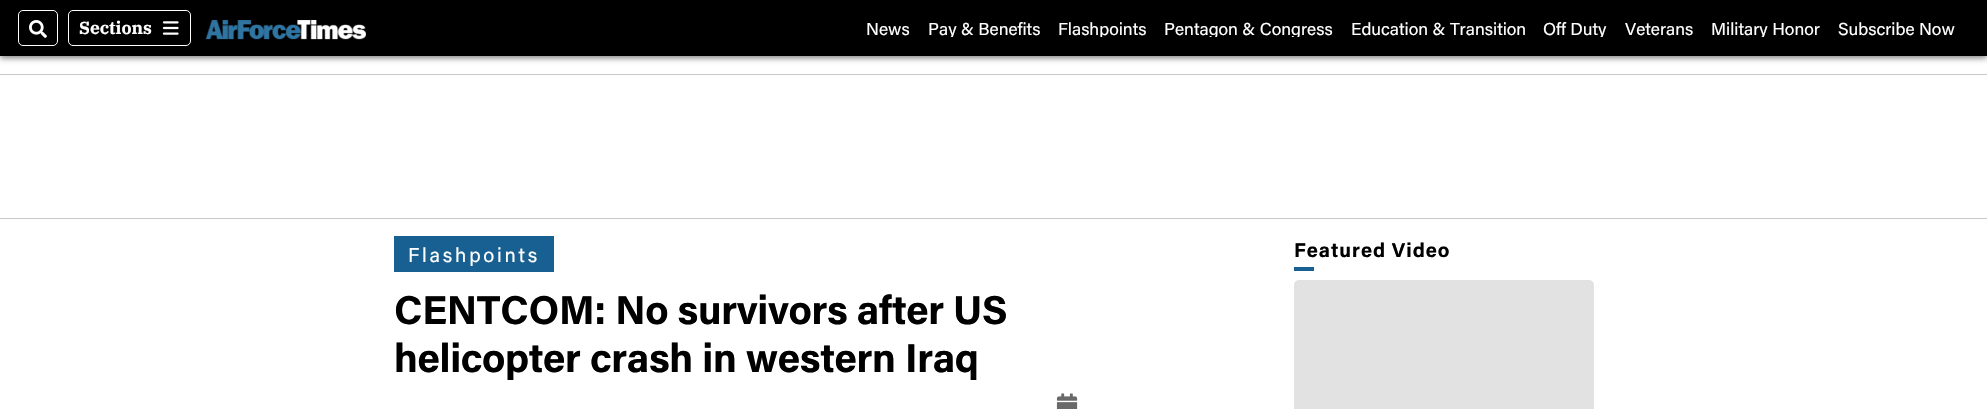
static SkFont makeFont(const char* family, int weight, float size, bool italic = false) {
  SkFontStyle style(weight, SkFontStyle::kNormal_Width,
    italic ? SkFontStyle::kItalic_Slant : SkFontStyle::kUpright_Slant);
  SkFont result(fontMgr->matchFamilyStyle(family, style), size);
  result.setSubpixel(true);
  return result;
}

static void text(SkCanvas* c, const char* s, float x, float y, const SkFont& font, SkColor color) {
  SkPaint ink(SkColor4f::FromColor(color));
  ink.setAntiAlias(true);
  c->drawString(s, x, y, font, ink);
}

static void spacedText(SkCanvas* c, const char* s, float x, float y, const SkFont& font, const SkPaint& ink, float letter, float word) {
  std::vector<SkGlyphID> glyphs(font.countText(s, strlen(s), SkTextEncoding::kUTF8));
  std::vector<float> xs(glyphs.size());
  font.textToGlyphs(s, strlen(s), SkTextEncoding::kUTF8, glyphs);
  font.getXPos(glyphs, xs, x);
  float extra = 0;
  for (size_t i = 0; i < glyphs.size(); i++) {
    xs[i] += extra;
    extra += letter + word * (glyphs[i] == font.unicharToGlyph(' '));
  }
  c->drawTextBlob(SkTextBlob::MakeFromPosHGlyphs(glyphs, xs, y, font), 0, 0, ink);
}

static void box(SkCanvas* c, float l, float t, float r, float b, SkColor color) {
  SkPaint ink(SkColor4f::FromColor(color));
  ink.setAntiAlias(true);
  c->drawRect(SkRect::MakeLTRB(l, t, r, b), ink);
}

static void roundBox(SkCanvas* c, float l, float t, float r, float b, float radius, SkColor color) {
  SkPaint ink(SkColor4f::FromColor(color));
  ink.setAntiAlias(true);
  c->drawRoundRect(SkRect::MakeLTRB(l, t, r, b), radius, radius, ink);
}

static void picture(SkCanvas* c, const char* path, float l, float t, float r, float b) {
  auto image = SkImages::DeferredFromEncodedData(SkData::MakeFromFileName(path));
  c->drawImageRect(image, SkRect::MakeLTRB(l, t, r, b), SkSamplingOptions());
}

void draw(SkCanvas* c) {
  SkPaint paint;
  paint.setAntiAlias(true);
  c->clear(0xffffffff);
  paint.setColor(0x80000000);
  paint.setMaskFilter(SkMaskFilter::MakeBlur(kNormal_SkBlurStyle, 3));
  c->drawRect(SkRect::MakeLTRB(0, 2, 1987, 58), paint);
  paint.setMaskFilter(nullptr);
  box(c, 0, 0, 1987, 56, 0xff000000);
  paint.setStyle(SkPaint::kStroke_Style);
  paint.setStrokeWidth(1);
  paint.setColor(0xffffffff);
  c->drawRoundRect(SkRect::MakeLTRB(18.5f, 10.5f, 57.5f, 45.5f), 4.5f, 4.5f, paint);
  picture(c, "img_01.png", 29, 20, 47, 38);
  c->drawRoundRect(SkRect::MakeLTRB(68.5f, 10.5f, 190.5f, 45.5f), 4.5f, 4.5f, paint);
  SkFont face1 = makeFont("IBM Plex Serif", 700, 17.4f);
  text(c, "Sections", 79, 34, face1, 0xffffffff);
  picture(c, "img_02.png", 162, 21, 179, 35);
  picture(c, "img_03.png", 205, 20, 366, 40);
  SkFont face2 = makeFont("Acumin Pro", 400, 17.4f);
  text(c, "News", 866, 35, face2, 0xffffffff);
  c->save();
  c->clipRect(SkRect::MakeLTRB(866, 19, 1954, 37));
  text(c, "Pay & Benefits", 928, 35, face2, 0xffffffff);
  text(c, "Flashpoints", 1058, 35, face2, 0xffffffff);
  text(c, "Pentagon & Congress", 1164, 35, face2, 0xffffffff);
  c->restore();
  text(c, "Education & Transition", 1351, 35, face2, 0xffffffff);
  c->save();
  c->clipRect(SkRect::MakeLTRB(866, 19, 1954, 37));
  text(c, "Off Duty", 1543, 35, face2, 0xffffffff);
  c->restore();
  text(c, "Veterans", 1625, 35, face2, 0xffffffff);
  c->save();
  c->clipRect(SkRect::MakeLTRB(866, 19, 1954, 37));
  text(c, "Military Honor", 1711, 35, face2, 0xffffffff);
  c->restore();
  text(c, "Subscribe Now", 1838, 35, face2, 0xffffffff);
  box(c, 0, 74, 1987, 75, 0xffc9c9c9);
  box(c, 0, 218, 1987, 219, 0xffc9c9c9);
  box(c, 394, 236, 554, 272, 0xff186091);
  SkFont face3 = makeFont("Acumin Pro", 400, 20);
  paint.setStyle(SkPaint::kFill_Style);
  spacedText(c, "Flashpoints", 408, 262, face3, paint, 2.75f, 0);
  SkFont face4 = makeFont("Acumin Pro", 700, 40.25f);
  paint.setColor(0xff000000);
  spacedText(c, "CENTCOM: No survivors after US", 394, 324, face4, paint, -0.35f, 0);
  spacedText(c, "helicopter crash in western Iraq", 394, 372, face4, paint, -0.35f, 0);
  picture(c, "img_04.png", 1056, 393, 1078, 409);
  SkFont face5 = makeFont("Acumin Pro", 700, 20);
  spacedText(c, "Featured Video", 1294, 257, face5, paint, 1, 0);
  box(c, 1294, 267, 1314, 271, 0xff186091);
  roundBox(c, 1294, 280, 1594, 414, 5, 0xffe2e2e2);
}
